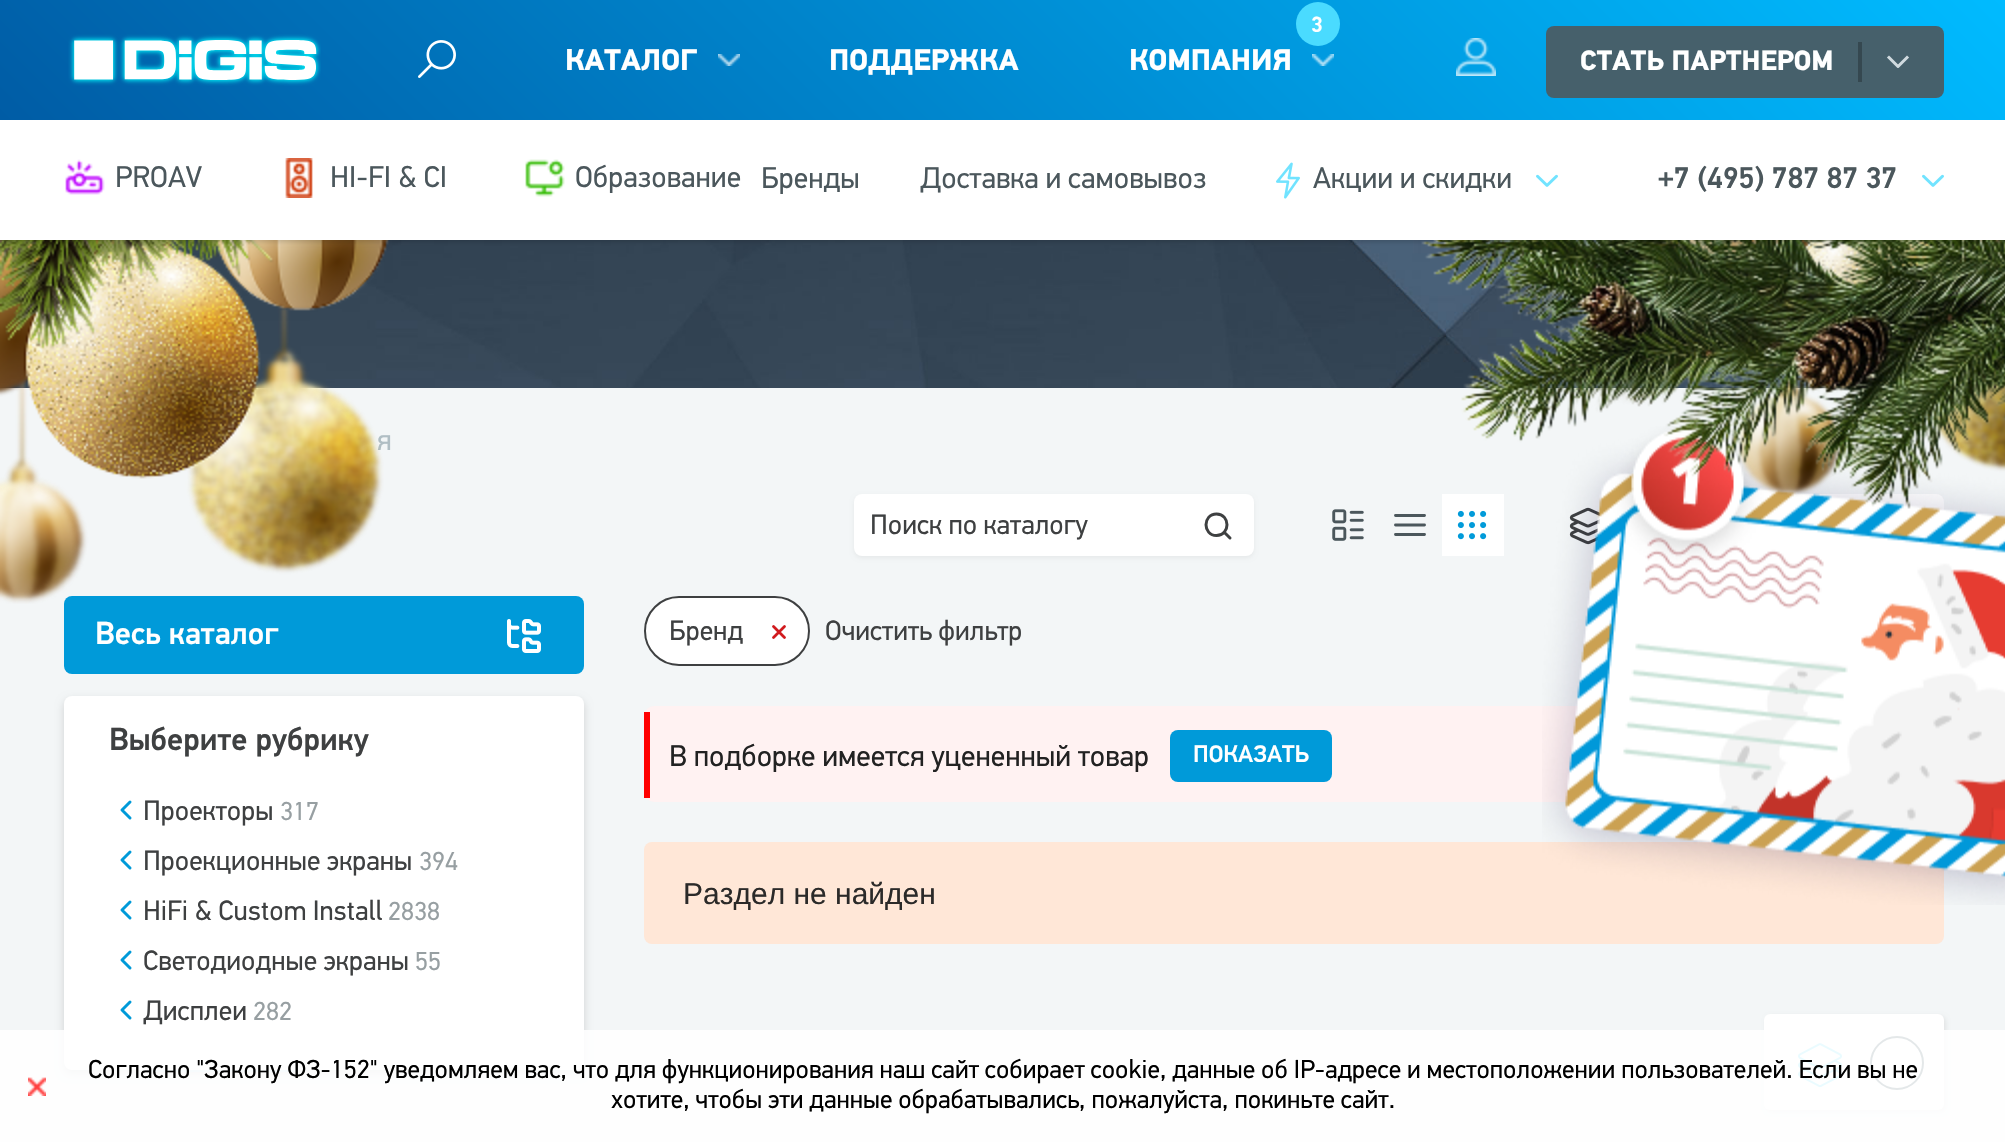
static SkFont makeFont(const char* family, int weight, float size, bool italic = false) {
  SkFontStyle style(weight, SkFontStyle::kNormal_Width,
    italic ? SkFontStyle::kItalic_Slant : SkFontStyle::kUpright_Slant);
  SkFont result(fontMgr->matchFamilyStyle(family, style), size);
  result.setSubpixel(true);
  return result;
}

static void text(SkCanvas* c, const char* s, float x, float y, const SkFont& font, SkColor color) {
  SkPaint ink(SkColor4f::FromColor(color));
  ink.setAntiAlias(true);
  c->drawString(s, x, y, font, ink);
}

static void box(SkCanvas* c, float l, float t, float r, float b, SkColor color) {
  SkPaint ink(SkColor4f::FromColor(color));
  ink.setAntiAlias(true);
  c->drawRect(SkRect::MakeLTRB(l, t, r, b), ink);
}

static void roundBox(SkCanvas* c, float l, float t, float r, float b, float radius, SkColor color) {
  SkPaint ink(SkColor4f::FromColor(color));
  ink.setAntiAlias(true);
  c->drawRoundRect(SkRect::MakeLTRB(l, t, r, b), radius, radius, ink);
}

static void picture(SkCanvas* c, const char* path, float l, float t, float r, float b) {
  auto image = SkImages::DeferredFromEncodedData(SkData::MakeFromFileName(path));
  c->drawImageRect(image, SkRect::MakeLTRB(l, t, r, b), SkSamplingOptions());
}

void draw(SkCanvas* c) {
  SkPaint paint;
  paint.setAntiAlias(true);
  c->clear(0xfff3f6f7);
  picture(c, "img_13.png", 0, 240, 1976, 388);
  SkFont face1 = makeFont("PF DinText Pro", 400, 30);
  text(c, "я", 377, 450, face1, 0xffb0bec4);
  roundBox(c, 64, 596, 584, 674, 8, 0xff009ad9);
  picture(c, "img_11.png", 0, 240, 389, 604);
  box(c, 1442, 494, 1504, 556, 0xffffffff);
  picture(c, "img_16.png", 1569, 507, 1600, 545);
  roundBox(c, 1720, 494, 1944, 556, 8, 0xffffffff);
  roundBox(c, 644, 706, 1944, 802, 10, 0xfffff2f2);
  roundBox(c, 644, 842, 1944, 944, 8, 0xffffe7d7);
  picture(c, "img_19.png", 1542, 426, 2005, 905);
  picture(c, "img_12.png", 1421, 240, 2005, 509);
  paint.setColor(0x26000000);
  paint.setMaskFilter(SkMaskFilter::MakeBlur(kNormal_SkBlurStyle, 2));
  c->drawRect(SkRect::MakeLTRB(0, 2, 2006, 242), paint);
  paint.setMaskFilter(nullptr);
  box(c, 0, 120, 2005, 240, 0xffffffff);
  {
    const SkColor colors[] = {0xff005ca5, 0xff00bbff};
    const float stops[] = {0, 1};
    const SkPoint ends[] = {{472, 592}, {1535, -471}};
    paint.setShader(SkGradientShader::MakeLinear(ends, colors, stops, 2, SkTileMode::kClamp));
    paint.setAlpha(255);
  }
  c->drawRect(SkRect::MakeLTRB(0, 0, 2005, 120), paint);
  picture(c, "img_01.png", 68, 34, 321, 86);
  picture(c, "img_02.png", 418, 40, 456, 78);
  SkFont face2 = makeFont("PF DinText Pro", 700, 30);
  text(c, "КАТАЛОГ", 565, 70, face2, 0xffffffff);
  picture(c, "img_03.png", 718, 54, 740, 66);
  text(c, "ПОДДЕРЖКА", 829, 70, face2, 0xffffffff);
  paint.setShader(nullptr);
  paint.setColor(0xff4adbff);
  c->drawCircle(1318, 24, 22, paint);
  SkFont face3 = makeFont("PF DinText Pro", 500, 22);
  text(c, "3", 1311, 32, face3, 0xffffffff);
  text(c, "КОМПАНИЯ", 1129, 70, face2, 0xffffffff);
  picture(c, "img_04.png", 1312, 54, 1334, 66);
  picture(c, "img_05.png", 1456, 38, 1496, 76);
  roundBox(c, 1546, 26, 1944, 98, 8, 0xff46606b);
  SkFont face4 = makeFont("PF DinText Pro", 700, 28);
  text(c, "СТАТЬ ПАРТНЕРОМ", 1580, 70, face4, 0xffffffff);
  box(c, 1858, 42, 1862, 82, 0xff354850);
  paint.setStyle(SkPaint::kStroke_Style);
  paint.setStrokeWidth(3);
  paint.setStrokeCap(SkPaint::kSquare_Cap);
  paint.setStrokeJoin(SkPaint::kRound_Join);
  paint.setColor(0xffd0dadf);
  c->drawPath(SkPathBuilder().moveTo(1889, 57.5f).lineTo(1898, 66.5f).lineTo(1907, 57.5f).detach(), paint);
  picture(c, "img_06.png", 65, 159, 105, 195);
  text(c, "PROAV", 115, 187, face1, 0xff4b575c);
  picture(c, "img_07.png", 285, 158, 313, 198);
  text(c, "HI-FI & CI", 330, 187, face1, 0xff4b575c);
  picture(c, "img_08.png", 525, 159, 565, 197);
  text(c, "Образование", 575, 187, face1, 0xff4b575c);
  text(c, "Бренды", 761, 188, face1, 0xff4b575c);
  text(c, "Доставка и самовывоз", 920, 188, face1, 0xff4b575c);
  picture(c, "img_09.png", 1276, 162, 1300, 199);
  text(c, "Акции и скидки", 1313, 188, face1, 0xff4b575c);
  picture(c, "img_10.png", 1536, 174, 1558, 187);
  SkFont face5 = makeFont("PF DinText Pro", 500, 30);
  text(c, "+7 (495) 787 87 37", 1658, 188, face5, 0xff4b575c);
  picture(c, "img_10.png", 1922, 174, 1944, 187);
  paint.setStyle(SkPaint::kFill_Style);
  paint.setColor(0x0d000000);
  paint.setMaskFilter(SkMaskFilter::MakeBlur(kNormal_SkBlurStyle, 2));
  c->drawRoundRect(SkRect::MakeLTRB(854, 496, 1254, 558), 8, 8, paint);
  paint.setMaskFilter(nullptr);
  roundBox(c, 854, 494, 1254, 556, 8, 0xffffffff);
  SkFont face6 = makeFont("PF DinText Pro", 400, 28);
  text(c, "Поиск по каталогу", 870, 534, face6, 0xff3e4041);
  paint.setStyle(SkPaint::kStroke_Style);
  paint.setStrokeCap(SkPaint::kRound_Cap);
  paint.setColor(0xff3e4041);
  c->drawPath(SkPathBuilder().moveTo(1216.5f, 535.5f).cubicTo(1230.5f, 535.5f, 1230.5f, 514, 1216.5f, 514).cubicTo(1202.5f, 514, 1202.5f, 535.5f, 1216.5f, 535.5f).close().moveTo(1230, 538).lineTo(1224, 532).detach(), paint);
  picture(c, "img_14.png", 1332, 509, 1364, 541);
  paint.setStrokeWidth(2.9f);
  paint.setColor(0xff4b575c);
  c->drawPath(SkPathBuilder().moveTo(1395.5f, 515.5f).lineTo(1424.5f, 515.5f).moveTo(1395.5f, 525).lineTo(1424.5f, 525).moveTo(1395.5f, 534.5f).lineTo(1424.5f, 534.5f).detach(), paint);
  picture(c, "img_15.png", 1457, 510, 1487, 540);
  SkFont face7 = makeFont("PF DinText Pro", 500, 32);
  text(c, "Весь каталог", 95, 644, face7, 0xffffffff);
  picture(c, "img_17.png", 507, 619, 541, 653);
  paint.setStyle(SkPaint::kFill_Style);
  paint.setColor(0x26000000);
  paint.setMaskFilter(SkMaskFilter::MakeBlur(kNormal_SkBlurStyle, 4));
  c->drawRoundRect(SkRect::MakeLTRB(64, 700, 584, 1074), 8, 8, paint);
  paint.setMaskFilter(nullptr);
  roundBox(c, 64, 696, 584, 1070, 8, 0xffffffff);
  text(c, "Выберите рубрику", 109, 750, face7, 0xff3e4041);
  paint.setStyle(SkPaint::kStroke_Style);
  paint.setStrokeWidth(3);
  paint.setColor(0xff009ad9);
  c->drawPath(SkPathBuilder().moveTo(130, 802).lineTo(122, 810).lineTo(130, 818).detach(), paint);
  text(c, "Проекторы", 143, 820, face6, 0xff3e4041);
  SkFont face8 = makeFont("PF DinText Pro", 400, 26);
  text(c, "317", 280, 820, face8, 0xff979fa2);
  c->drawPath(SkPathBuilder().moveTo(130, 852).lineTo(122, 860).lineTo(130, 868).detach(), paint);
  text(c, "Проекционные экраны", 143, 870, face6, 0xff3e4041);
  text(c, "394", 419, 870, face8, 0xff979fa2);
  c->drawPath(SkPathBuilder().moveTo(130, 902).lineTo(122, 910).lineTo(130, 918).detach(), paint);
  text(c, "HiFi & Custom Install", 143, 920, face6, 0xff3e4041);
  text(c, "2838", 388, 920, face8, 0xff979fa2);
  c->drawPath(SkPathBuilder().moveTo(130, 952).lineTo(122, 960).lineTo(130, 968).detach(), paint);
  text(c, "Светодиодные экраны", 143, 970, face6, 0xff3e4041);
  text(c, "55", 415, 970, face8, 0xff979fa2);
  c->drawPath(SkPathBuilder().moveTo(130, 1002).lineTo(122, 1010).lineTo(130, 1018).detach(), paint);
  text(c, "Дисплеи", 143, 1020, face6, 0xff3e4041);
  text(c, "282", 253, 1020, face8, 0xff979fa2);
  box(c, 144, 1070, 298, 1072, 0xffc8e5f1);
  paint.setStyle(SkPaint::kFill_Style);
  paint.setColor(0xffffffff);
  c->drawRoundRect(SkRect::MakeLTRB(645, 597, 809, 665), 34, 34, paint);
  paint.setStyle(SkPaint::kStroke_Style);
  paint.setStrokeWidth(2);
  paint.setStrokeCap(SkPaint::kButt_Cap);
  paint.setStrokeJoin(SkPaint::kMiter_Join);
  paint.setColor(0xff3e4041);
  c->drawRoundRect(SkRect::MakeLTRB(645, 597, 809, 665), 34, 34, paint);
  text(c, "Бренд", 669, 640, face6, 0xff3e4041);
  paint.setStrokeWidth(2.8f);
  paint.setStrokeCap(SkPaint::kRound_Cap);
  paint.setStrokeJoin(SkPaint::kRound_Join);
  paint.setColor(0xffd11a1e);
  c->drawPath(SkPathBuilder().moveTo(784.5f, 626.5f).lineTo(773.5f, 637.5f).moveTo(773.5f, 626.5f).lineTo(784.5f, 637.5f).detach(), paint);
  text(c, "Очистить фильтр", 825, 640, face6, 0xff3e4041);
  box(c, 644, 712, 650, 798, 0xffff0000);
  text(c, "В подборке имеется уцененный товар", 669, 766, face1, 0xff222222);
  roundBox(c, 1170, 730, 1332, 782, 8, 0xff009ad9);
  SkFont face9 = makeFont("PF DinText Pro", 500, 24);
  text(c, "ПОКАЗАТЬ", 1193, 762, face9, 0xffffffff);
  SkFont face10 = makeFont("Liberation Sans", 400, 30);
  text(c, "Раздел не найден", 683, 904, face10, 0xff2b2a29);
  paint.setStyle(SkPaint::kFill_Style);
  paint.setColor(0x12000000);
  paint.setMaskFilter(SkMaskFilter::MakeBlur(kNormal_SkBlurStyle, 2));
  c->drawRoundRect(SkRect::MakeLTRB(1766, 1016, 1946, 1112), 6, 6, paint);
  paint.setMaskFilter(nullptr);
  roundBox(c, 1764, 1014, 1944, 1110, 6, 0xffffffff);
  picture(c, "img_18.png", 1798, 1043, 1842, 1088);
  paint.setStyle(SkPaint::kStroke_Style);
  paint.setStrokeWidth(2);
  paint.setStrokeCap(SkPaint::kButt_Cap);
  paint.setStrokeJoin(SkPaint::kMiter_Join);
  paint.setColor(0xff46606b);
  c->drawCircle(1897, 1063, 26, paint);
  box(c, 0, 1030, 2005, 1142, 0xd9ffffff);
  picture(c, "img_20.png", 28, 1077, 46, 1096);
  text(c, "Согласно \"Закону ФЗ-152\" уведомляем вас, что для функционирования наш сайт собирает cookie, данные об IP-адресе и местоположении пользователей. Если вы не", 88, 1078, face8, 0xff000000);
  text(c, "хотите, чтобы эти данные обрабатывались, пожалуйста, покиньте сайт.", 611, 1108, face8, 0xff000000);
}
